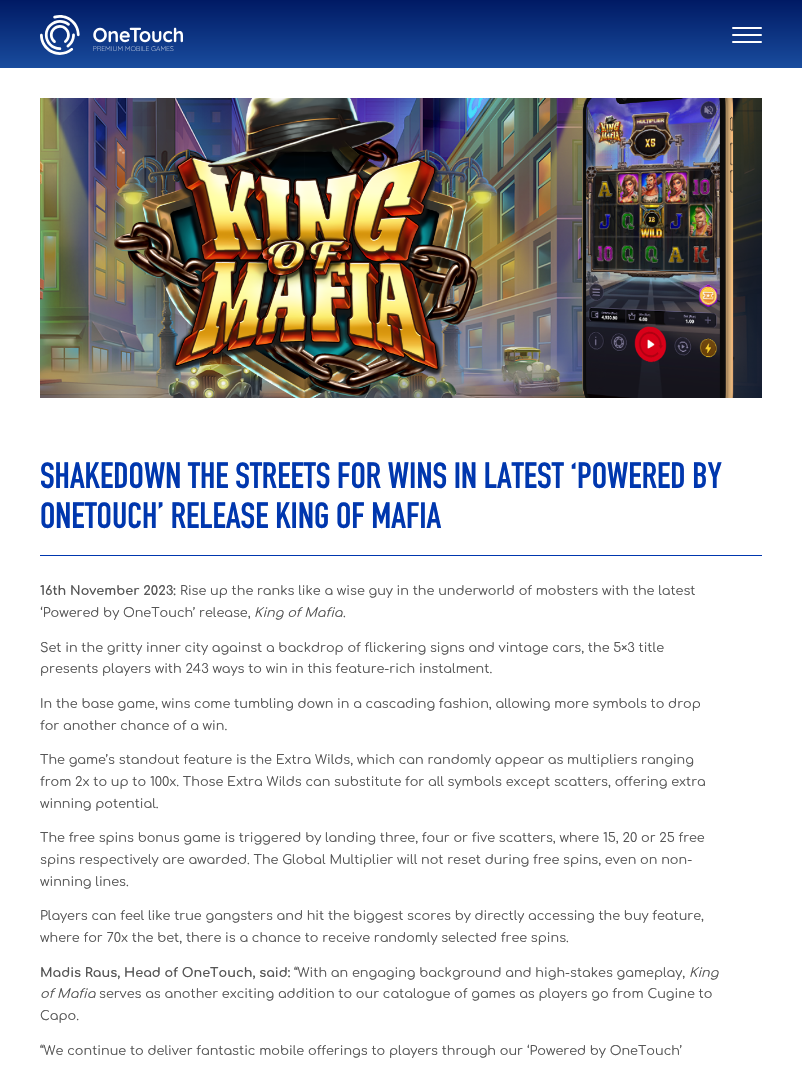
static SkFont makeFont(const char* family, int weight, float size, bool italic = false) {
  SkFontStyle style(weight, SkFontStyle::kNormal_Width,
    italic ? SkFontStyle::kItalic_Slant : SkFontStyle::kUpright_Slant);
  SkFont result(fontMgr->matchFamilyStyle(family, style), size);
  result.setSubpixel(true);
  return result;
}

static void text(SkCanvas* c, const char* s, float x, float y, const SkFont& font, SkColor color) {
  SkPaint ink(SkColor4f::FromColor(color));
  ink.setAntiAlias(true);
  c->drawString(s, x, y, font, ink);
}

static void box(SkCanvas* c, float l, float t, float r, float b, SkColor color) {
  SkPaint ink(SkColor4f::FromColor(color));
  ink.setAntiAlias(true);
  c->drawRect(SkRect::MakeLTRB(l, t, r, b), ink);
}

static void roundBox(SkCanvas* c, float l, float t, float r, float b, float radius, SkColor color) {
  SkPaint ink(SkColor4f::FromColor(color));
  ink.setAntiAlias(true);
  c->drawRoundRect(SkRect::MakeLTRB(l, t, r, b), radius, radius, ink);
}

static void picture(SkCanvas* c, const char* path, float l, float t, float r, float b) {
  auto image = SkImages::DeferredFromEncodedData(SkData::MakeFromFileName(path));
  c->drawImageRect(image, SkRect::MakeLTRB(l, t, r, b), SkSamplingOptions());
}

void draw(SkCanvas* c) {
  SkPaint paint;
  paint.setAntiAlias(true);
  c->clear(0xffffffff);
  {
    const SkColor colors[] = {0xff001a64, 0xff194c9e};
    const float stops[] = {0, 1};
    const SkPoint ends[] = {{401, 0}, {401, 68}};
    paint.setShader(SkGradientShader::MakeLinear(ends, colors, stops, 2, SkTileMode::kClamp));
    paint.setAlpha(255);
  }
  c->drawRect(SkRect::MakeLTRB(0, 0, 802, 68), paint);
  picture(c, "img_01.png", 40, 15, 183, 55);
  roundBox(c, 732, 34, 762, 36, 1, 0xffffffff);
  roundBox(c, 732, 27, 762, 29, 1, 0xffffffff);
  roundBox(c, 732, 41, 762, 43, 1, 0xffffffff);
  picture(c, "img_02.png", 40, 98, 762, 398);
  box(c, 40, 555, 762, 556, 0xff0037ae);
  SkFont face1 = makeFont("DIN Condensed", 700, 36);
  text(c, "SHAKEDOWN THE STREETS FOR WINS IN LATEST ‘POWERED BY", 40, 488, face1, 0xff0037ae);
  text(c, "ONETOUCH’ RELEASE KING OF MAFIA", 40, 528, face1, 0xff0037ae);
  SkFont face2 = makeFont("Comfortaa", 700, 12.8f);
  text(c, "16th November 2023:", 40, 595, face2, 0xff555555);
  SkFont face3 = makeFont("Comfortaa", 400, 12.8f);
  text(c, "Rise up the ranks like a wise guy in the underworld of mobsters with the latest", 180, 595, face3, 0xff555555);
  text(c, "‘Powered by OneTouch’ release,", 40, 617, face3, 0xff555555);
  SkFont face4 = makeFont("Comfortaa", 400, 12.8f, true);
  text(c, "King of Mafia", 254, 617, face4, 0xff555555);
  text(c, ".", 343, 617, face3, 0xff555555);
  text(c, "Set in the gritty inner city against a backdrop of flickering signs and vintage cars, the 5×3 title", 40, 652, face3, 0xff555555);
  text(c, "presents players with 243 ways to win in this feature-rich instalment.", 40, 673, face3, 0xff555555);
  text(c, "In the base game, wins come tumbling down in a cascading fashion, allowing more symbols to drop", 40, 708, face3, 0xff555555);
  text(c, "for another chance of a win.", 40, 730, face3, 0xff555555);
  text(c, "The game’s standout feature is the Extra Wilds, which can randomly appear as multipliers ranging", 40, 764, face3, 0xff555555);
  text(c, "from 2x to up to 100x. Those Extra Wilds can substitute for all symbols except scatters, offering extra", 40, 786, face3, 0xff555555);
  text(c, "winning potential.", 40, 808, face3, 0xff555555);
  text(c, "The free spins bonus game is triggered by landing three, four or five scatters, where 15, 20 or 25 free", 40, 842, face3, 0xff555555);
  text(c, "spins respectively are awarded. The Global Multiplier will not reset during free spins, even on non-", 40, 864, face3, 0xff555555);
  text(c, "winning lines.", 40, 886, face3, 0xff555555);
  text(c, "Players can feel like true gangsters and hit the biggest scores by directly accessing the buy feature,", 40, 920, face3, 0xff555555);
  text(c, "where for 70x the bet, there is a chance to receive randomly selected free spins.", 40, 942, face3, 0xff555555);
  text(c, "Madis Raus, Head of OneTouch, said:", 40, 977, face2, 0xff555555);
  text(c, "“With an engaging background and high-stakes gameplay,", 294, 977, face3, 0xff555555);
  text(c, "King", 689, 977, face4, 0xff555555);
  text(c, "of Mafia", 40, 998, face4, 0xff555555);
  text(c, "serves as another exciting addition to our catalogue of games as players go from Cugine to", 99, 998, face3, 0xff555555);
  text(c, "Capo.", 40, 1020, face3, 0xff555555);
  text(c, "“We continue to deliver fantastic mobile offerings to players through our ‘Powered by OneTouch’", 40, 1055, face3, 0xff555555);
}
